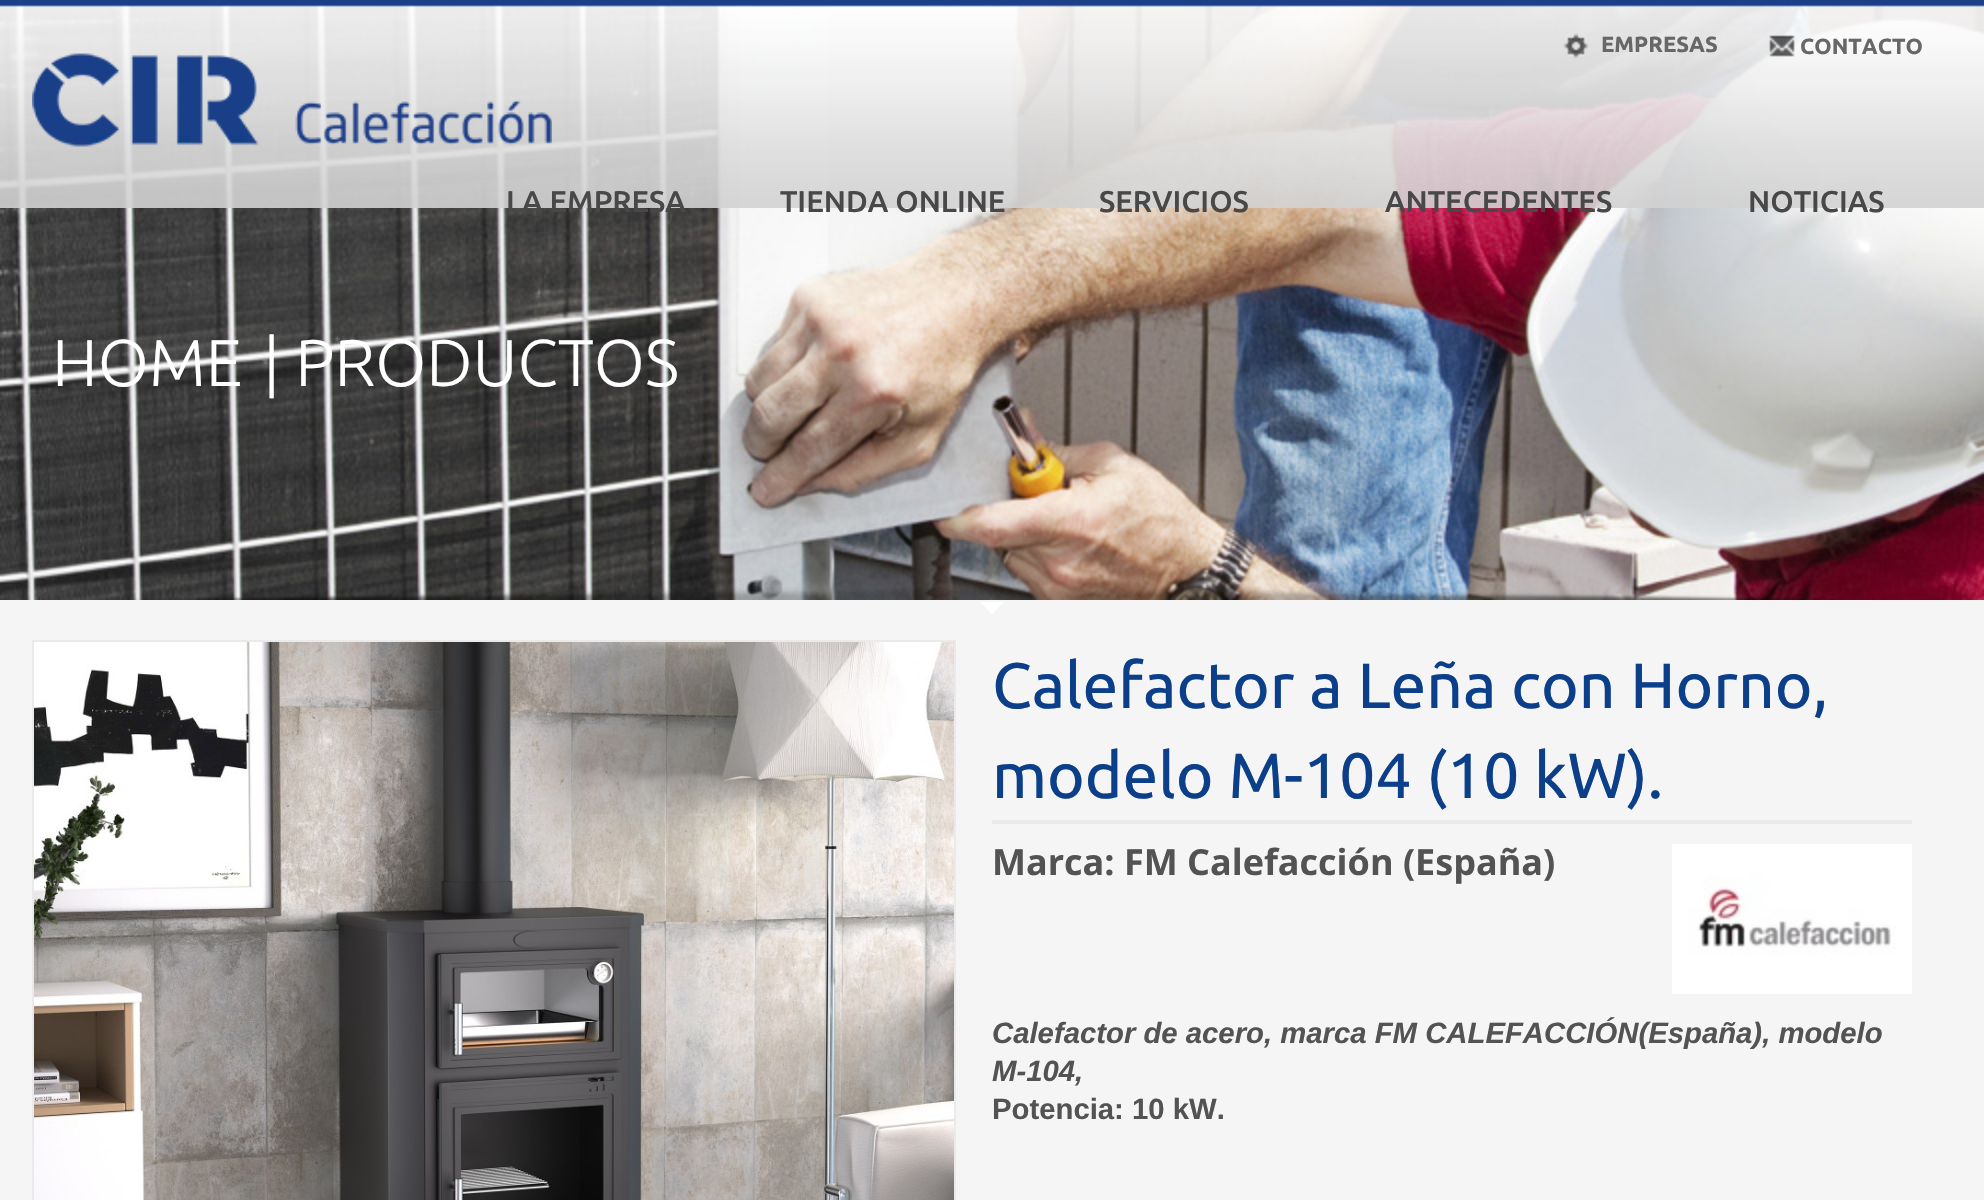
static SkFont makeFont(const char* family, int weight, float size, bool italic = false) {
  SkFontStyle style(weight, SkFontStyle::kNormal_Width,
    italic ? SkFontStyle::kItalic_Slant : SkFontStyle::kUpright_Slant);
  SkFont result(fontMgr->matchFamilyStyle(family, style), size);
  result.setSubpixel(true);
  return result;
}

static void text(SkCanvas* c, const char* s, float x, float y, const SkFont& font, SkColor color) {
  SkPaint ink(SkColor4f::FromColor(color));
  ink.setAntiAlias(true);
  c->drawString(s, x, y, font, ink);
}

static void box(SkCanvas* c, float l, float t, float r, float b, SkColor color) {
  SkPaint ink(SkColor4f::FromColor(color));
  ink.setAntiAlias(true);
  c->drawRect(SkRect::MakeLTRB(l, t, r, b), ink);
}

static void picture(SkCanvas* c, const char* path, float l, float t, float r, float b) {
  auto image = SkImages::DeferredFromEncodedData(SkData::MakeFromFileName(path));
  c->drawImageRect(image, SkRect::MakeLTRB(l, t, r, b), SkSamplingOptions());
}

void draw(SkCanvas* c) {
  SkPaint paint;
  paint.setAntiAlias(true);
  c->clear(0xfff5f5f5);
  picture(c, "img_05.png", 0, 5, 1984, 600);
  picture(c, "img_01.png", 0, 0, 1984, 208);
  picture(c, "img_02.png", 1563, 33, 1589, 59);
  SkFont face1 = makeFont("Ubuntu", 700, 22);
  text(c, "EMPRESAS", 1601, 52, face1, 0xff676767);
  picture(c, "img_03.png", 1769, 35, 1795, 57);
  text(c, "CONTACTO", 1800, 54, face1, 0xff676767);
  picture(c, "img_04.png", 32, 53, 552, 147);
  SkFont face2 = makeFont("Ubuntu", 500, 30);
  text(c, "LA EMPRESA", 506, 212, face2, 0xff484848);
  text(c, "TIENDA ONLINE", 780, 212, face2, 0xff484848);
  text(c, "SERVICIOS", 1099, 212, face2, 0xff484848);
  text(c, "ANTECEDENTES", 1385, 212, face2, 0xff484848);
  text(c, "NOTICIAS", 1748, 212, face2, 0xff484848);
  SkFont face3 = makeFont("Ubuntu", 300, 66);
  text(c, "HOME", 52, 386, face3, 0xffffffff);
  text(c, "| PRODUCTOS", 263, 386, face3, 0xffffffff);
  picture(c, "img_06.png", 134, 587, 1843, 600);
  paint.setColor(0xffffffff);
  c->drawPath(SkPathBuilder().moveTo(980, 602).lineTo(1004, 602).lineTo(992, 614).close().detach(), paint);
  paint.setStyle(SkPaint::kStroke_Style);
  paint.setStrokeWidth(2);
  paint.setColor(0xffeaeaea);
  c->drawRect(SkRect::MakeLTRB(33, 641, 955, 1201), paint);
  picture(c, "img_07.png", 34, 642, 954, 1200);
  box(c, 992, 820, 1912, 824, 0xffeaeaea);
  SkFont face4 = makeFont("Ubuntu", 400, 64);
  text(c, "Calefactor a Leña con Horno,", 992, 708, face4, 0xff0c3f8a);
  text(c, "modelo M-104 (10 kW).", 992, 798, face4, 0xff0c3f8a);
  SkFont face5 = makeFont("Open Sans", 700, 36);
  text(c, "Marca: FM Calefacción (España)", 992, 875, face5, 0xff535353);
  picture(c, "img_08.png", 1672, 844, 1912, 994);
  SkFont face6 = makeFont("Liberation Sans", 700, 29.3f, true);
  text(c, "Calefactor de acero, marca FM CALEFACCIÓN(España), modelo", 992, 1043, face6, 0xff535353);
  text(c, "M-104,", 992, 1081, face6, 0xff535353);
  SkFont face7 = makeFont("Liberation Sans", 700, 29.3f);
  text(c, "Potencia: 10 kW.", 992, 1119, face7, 0xff535353);
}
